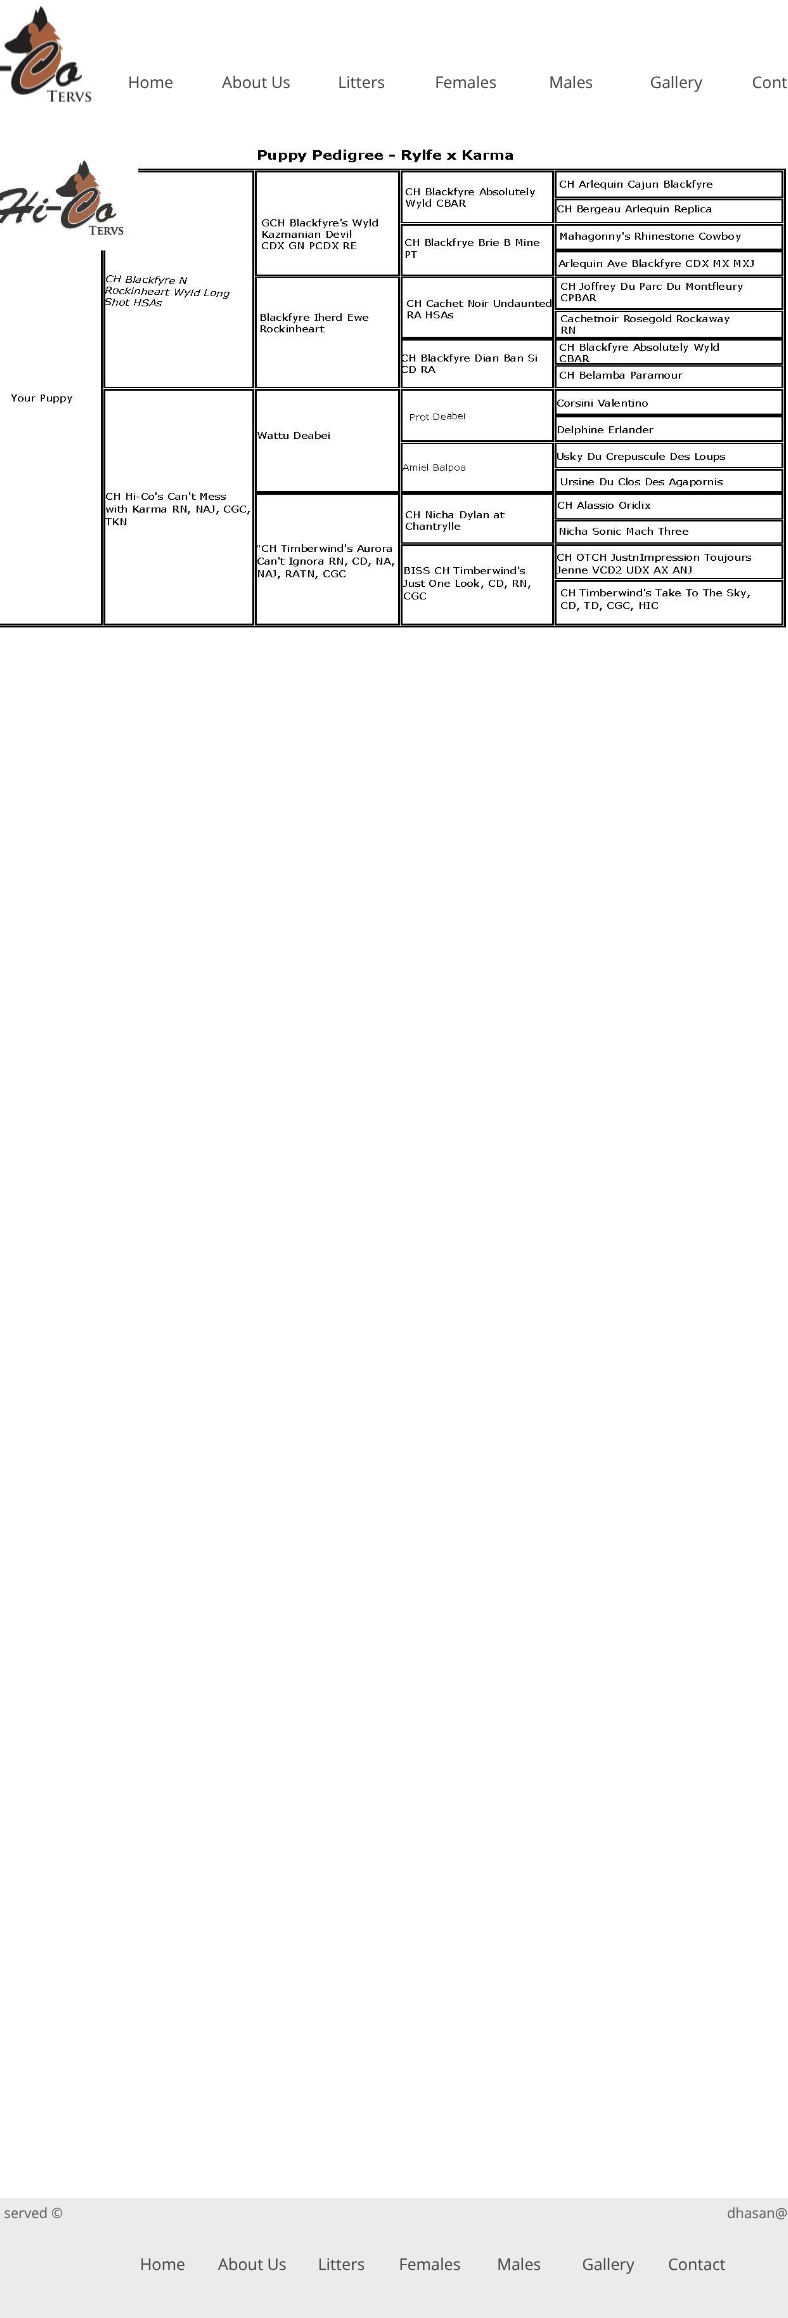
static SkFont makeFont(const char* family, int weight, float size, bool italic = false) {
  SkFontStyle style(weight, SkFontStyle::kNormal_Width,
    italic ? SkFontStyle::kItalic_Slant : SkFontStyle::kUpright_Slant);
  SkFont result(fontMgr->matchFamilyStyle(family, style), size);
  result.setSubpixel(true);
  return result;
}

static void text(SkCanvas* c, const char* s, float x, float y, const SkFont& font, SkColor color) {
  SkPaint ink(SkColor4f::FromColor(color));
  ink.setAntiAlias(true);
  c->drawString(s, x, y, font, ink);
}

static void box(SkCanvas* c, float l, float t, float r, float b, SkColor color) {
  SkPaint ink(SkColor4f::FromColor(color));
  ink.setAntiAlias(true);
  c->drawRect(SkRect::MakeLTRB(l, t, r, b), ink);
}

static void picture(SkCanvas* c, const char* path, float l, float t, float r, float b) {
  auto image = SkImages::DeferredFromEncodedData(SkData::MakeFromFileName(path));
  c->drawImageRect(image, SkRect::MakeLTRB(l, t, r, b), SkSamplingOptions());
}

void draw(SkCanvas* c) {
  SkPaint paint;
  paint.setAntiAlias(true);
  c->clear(0xffffffff);
  picture(c, "img_01.png", 0, 6, 95, 103);
  SkFont face1 = makeFont("Open Sans", 400, 16);
  text(c, "Home", 128, 88, face1, 0xff4d4949);
  text(c, "About Us", 222, 88, face1, 0xff4d4949);
  text(c, "Litters", 338, 88, face1, 0xff4d4949);
  text(c, "Females", 435, 88, face1, 0xff4d4949);
  text(c, "Males", 549, 88, face1, 0xff4d4949);
  text(c, "Gallery", 650, 88, face1, 0xff4d4949);
  text(c, "Cont", 752, 88, face1, 0xff4d4949);
  picture(c, "img_02.png", 0, 149, 786, 628);
  box(c, 0, 2198, 788, 2318, 0xffebebeb);
  SkFont face2 = makeFont("Open Sans", 400, 14);
  text(c, "served ©", 4, 2218, face2, 0xff636363);
  text(c, "dhasan@", 727, 2218, face2, 0xff636363);
  text(c, "Home", 140, 2270, face1, 0xff4d4949);
  text(c, "About Us", 218, 2270, face1, 0xff4d4949);
  text(c, "Litters", 318, 2270, face1, 0xff4d4949);
  text(c, "Females", 399, 2270, face1, 0xff4d4949);
  text(c, "Males", 497, 2270, face1, 0xff4d4949);
  text(c, "Gallery", 582, 2270, face1, 0xff4d4949);
  text(c, "Contact", 668, 2270, face1, 0xff4d4949);
}
